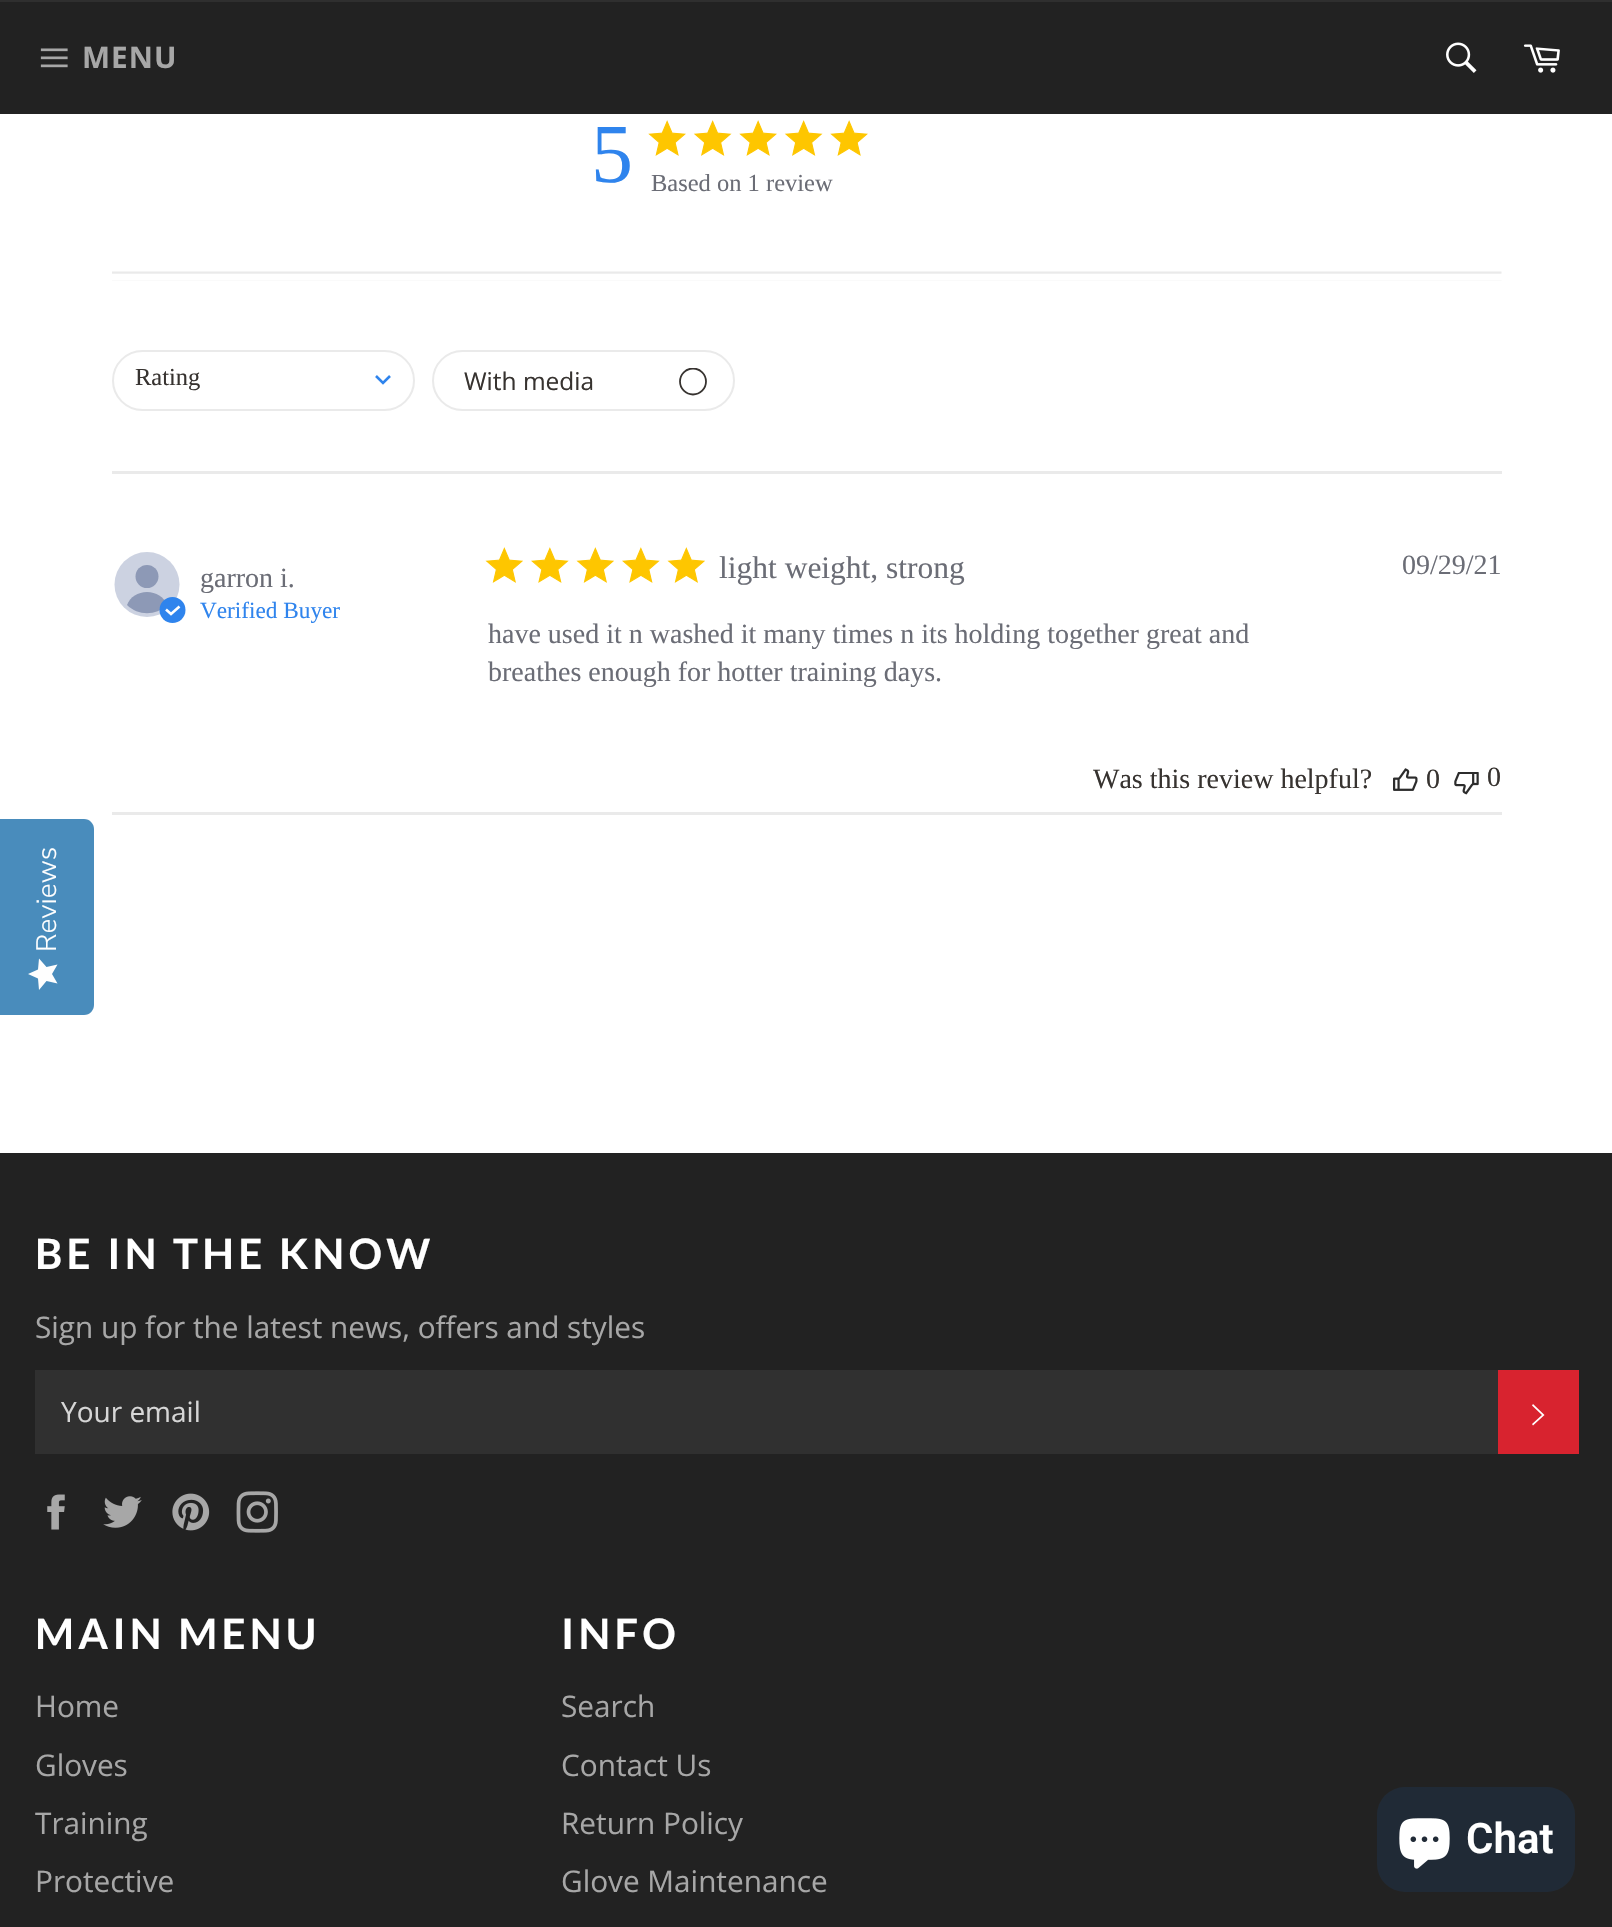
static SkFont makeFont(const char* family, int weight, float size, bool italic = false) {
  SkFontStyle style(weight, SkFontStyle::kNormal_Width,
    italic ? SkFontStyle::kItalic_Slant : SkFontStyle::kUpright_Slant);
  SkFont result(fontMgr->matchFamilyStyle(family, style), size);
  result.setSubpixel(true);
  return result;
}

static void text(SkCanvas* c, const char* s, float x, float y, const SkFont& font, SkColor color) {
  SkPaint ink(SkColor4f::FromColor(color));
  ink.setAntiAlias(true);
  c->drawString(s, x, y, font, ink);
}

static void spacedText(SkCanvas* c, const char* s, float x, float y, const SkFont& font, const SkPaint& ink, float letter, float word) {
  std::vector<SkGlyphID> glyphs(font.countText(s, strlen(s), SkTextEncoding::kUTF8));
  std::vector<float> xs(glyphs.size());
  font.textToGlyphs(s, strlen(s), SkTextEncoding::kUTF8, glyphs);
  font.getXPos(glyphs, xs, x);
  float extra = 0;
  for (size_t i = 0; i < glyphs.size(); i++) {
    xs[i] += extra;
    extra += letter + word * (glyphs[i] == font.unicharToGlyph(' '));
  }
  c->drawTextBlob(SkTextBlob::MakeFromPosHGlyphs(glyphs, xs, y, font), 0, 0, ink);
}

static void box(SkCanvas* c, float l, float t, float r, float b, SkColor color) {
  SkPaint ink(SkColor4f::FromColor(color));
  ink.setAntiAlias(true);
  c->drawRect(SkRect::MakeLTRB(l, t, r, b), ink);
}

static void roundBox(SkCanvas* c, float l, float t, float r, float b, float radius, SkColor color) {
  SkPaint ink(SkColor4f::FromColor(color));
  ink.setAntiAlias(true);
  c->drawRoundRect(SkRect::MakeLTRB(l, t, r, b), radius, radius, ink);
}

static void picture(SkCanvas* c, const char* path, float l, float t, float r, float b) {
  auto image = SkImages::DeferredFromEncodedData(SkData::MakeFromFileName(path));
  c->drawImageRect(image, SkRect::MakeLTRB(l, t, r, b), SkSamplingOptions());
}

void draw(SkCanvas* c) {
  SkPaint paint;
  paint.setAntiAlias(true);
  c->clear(0xffffffff);
  box(c, 0, 2, 1612, 114, 0xff222222);
  box(c, 0, 0, 1612, 2, 0xff2f2f2f);
  picture(c, "img_01.png", 40, 48, 68, 68);
  SkFont face1 = makeFont("Open Sans", 700, 29.75f);
  paint.setColor(0xffa7a7a7);
  spacedText(c, "MENU", 82, 68, face1, paint, 1, 0);
  picture(c, "img_02.png", 1446, 42, 1477, 73);
  picture(c, "img_03.png", 1523, 44, 1560, 73);
  SkFont face2 = makeFont("Liberation Serif", 400, 84);
  text(c, "5", 591, 182, face2, 0xff2f84ed);
  picture(c, "img_04.png", 648, 120, 686, 156);
  picture(c, "img_05.png", 693, 120, 732, 156);
  picture(c, "img_04.png", 739, 120, 777, 156);
  picture(c, "img_05.png", 784, 120, 823, 156);
  picture(c, "img_04.png", 830, 120, 868, 156);
  SkFont face3 = makeFont("Liberation Serif", 400, 24.5f);
  text(c, "Based on 1 review", 651, 191, face3, 0xff6b6d76);
  picture(c, "img_06.png", 112, 271, 1502, 281);
  paint.setStyle(SkPaint::kStroke_Style);
  paint.setStrokeWidth(2);
  paint.setColor(0xffeaeaea);
  c->drawRoundRect(SkRect::MakeLTRB(113, 351, 414, 410), 29.5f, 29.5f, paint);
  paint.setStrokeWidth(2.6f);
  paint.setColor(0xff2f84ed);
  c->drawPath(SkPathBuilder().moveTo(376, 376).lineTo(383, 383).lineTo(390, 376).detach(), paint);
  text(c, "Rating", 135, 385, face3, 0xff373330);
  paint.setStrokeWidth(2);
  paint.setColor(0xffeaeaea);
  c->drawRoundRect(SkRect::MakeLTRB(433, 351, 734, 410), 29.5f, 29.5f, paint);
  SkFont face4 = makeFont("Open Sans", 400, 24.5f);
  text(c, "With media", 464, 390, face4, 0xff373330);
  c->save();
  c->clipRect(SkRect::MakeLTRB(679, 368, 707, 396));
  paint.setStrokeWidth(1.8f);
  paint.setColor(0xff373330);
  c->drawCircle(693, 381.5f, 13, paint);
  c->restore();
  box(c, 112, 471, 1502, 474, 0xffeaeaea);
  paint.setStyle(SkPaint::kFill_Style);
  paint.setColor(0xffccd2e1);
  c->drawCircle(147, 584.5f, 32.5f, paint);
  paint.setColor(0xff8d99b6);
  c->drawCircle(147, 576.5f, 11.5f, paint);
  c->drawPath(SkPathBuilder().moveTo(147, 592).cubicTo(156, 592, 164, 597, 167, 605).cubicTo(156, 616, 138, 616, 127, 605).cubicTo(130, 597, 138, 592, 147, 592).close().detach(), paint);
  paint.setColor(0xff2f84ed);
  c->drawCircle(172.5f, 610, 13, paint);
  paint.setStyle(SkPaint::kStroke_Style);
  paint.setStrokeWidth(2.6f);
  paint.setColor(0xffffffff);
  c->drawPath(SkPathBuilder().moveTo(166, 609.5f).lineTo(171, 614).lineTo(179.5f, 606.5f).detach(), paint);
  SkFont face5 = makeFont("Liberation Serif", 400, 28);
  text(c, "garron i.", 200, 587, face5, 0xff6b6d76);
  SkFont face6 = makeFont("Liberation Serif", 400, 23.25f);
  text(c, "Verified Buyer", 200, 618, face6, 0xff2f84ed);
  picture(c, "img_07.png", 485, 547, 523, 583);
  picture(c, "img_08.png", 531, 547, 569, 583);
  picture(c, "img_07.png", 576, 547, 614, 583);
  picture(c, "img_08.png", 622, 547, 660, 583);
  picture(c, "img_07.png", 667, 547, 705, 583);
  SkFont face7 = makeFont("Liberation Serif", 400, 31.5f);
  text(c, "light weight, strong", 719, 578, face7, 0xff6b6d76);
  text(c, "have used it n washed it many times n its holding together great and", 488, 643, face5, 0xff6b6d76);
  text(c, "breathes enough for hotter training days.", 488, 681, face5, 0xff6b6d76);
  text(c, "09/29/21", 1402, 574, face5, 0xff6b6d76);
  text(c, "Was this review helpful?", 1093, 788, face5, 0xff373330);
  picture(c, "img_09.png", 1393, 768, 1418, 791);
  text(c, "0", 1426, 788, face5, 0xff373330);
  picture(c, "img_10.png", 1454, 772, 1479, 795);
  text(c, "0", 1487, 786, face5, 0xff373330);
  box(c, 112, 812, 1502, 815, 0xffeaeaea);
  box(c, 0, 1153, 1612, 1927, 0xff222222);
  SkFont face8 = makeFont("Lato", 700, 42);
  paint.setStyle(SkPaint::kFill_Style);
  spacedText(c, "BE IN THE KNOW", 35, 1269, face8, paint, 4.25f, 0);
  SkFont face9 = makeFont("Open Sans", 400, 29.75f);
  text(c, "Sign up for the latest news, offers and styles", 35, 1338, face9, 0xffa7a7a7);
  box(c, 35, 1370, 1498, 1454, 0xff303030);
  SkFont face10 = makeFont("Open Sans", 400, 28);
  text(c, "Your email", 61, 1422, face10, 0xffd6d6d6);
  box(c, 1498, 1370, 1579, 1454, 0xffd8232f);
  c->drawPath(SkPathBuilder().moveTo(1532, 1405.5f).lineTo(1533, 1404).lineTo(1544.5f, 1415).lineTo(1533, 1425.5f).lineTo(1532, 1424).lineTo(1542, 1415).close().detach(), paint);
  picture(c, "img_11.png", 47, 1494, 65, 1530);
  picture(c, "img_12.png", 103, 1496, 142, 1528);
  picture(c, "img_13.png", 172, 1493, 210, 1531);
  picture(c, "img_14.png", 236, 1491, 278, 1533);
  spacedText(c, "MAIN MENU", 35, 1649, face8, paint, 4.25f, 0);
  text(c, "Home", 35, 1717, face9, 0xffa7a7a7);
  text(c, "Gloves", 35, 1776, face9, 0xffa7a7a7);
  text(c, "Training", 35, 1834, face9, 0xffa7a7a7);
  text(c, "Protective", 35, 1892, face9, 0xffa7a7a7);
  spacedText(c, "INFO", 561, 1649, face8, paint, 4.25f, 0);
  text(c, "Search", 561, 1717, face9, 0xffa7a7a7);
  text(c, "Contact Us", 561, 1776, face9, 0xffa7a7a7);
  text(c, "Return Policy", 561, 1834, face9, 0xffa7a7a7);
  text(c, "Glove Maintenance", 561, 1892, face9, 0xffa7a7a7);
  paint.setColor(0xff498cbc);
  c->drawPath(SkPathBuilder().moveTo(0, 1015).lineTo(0, 819).lineTo(84, 819).cubicTo(90, 819, 94, 824, 94, 829).lineTo(94, 1005).cubicTo(94, 1010, 90, 1015, 84, 1015).close().detach(), paint);
  SkFont face11 = makeFont("Nunito Sans", 300, 28);
  c->save();
  c->rotate(-90, 56, 952);
  text(c, "Reviews", 56, 952, face11, 0xffffffff);
  c->restore();
  {
    const SkColor colors[] = {0xfffefefe, 0xffeaeaea};
    const float stops[] = {1, 1};
    const SkPoint ends[] = {{28, 990}, {28, 958}};
    paint.setShader(SkGradientShader::MakeLinear(ends, colors, stops, 2, SkTileMode::kClamp));
    paint.setAlpha(255);
  }
  c->drawPath(SkPathBuilder().moveTo(52, 974).lineTo(57.5f, 964.5f).lineTo(46.5f, 967).lineTo(39, 958.5f).lineTo(38, 969.5f).lineTo(28, 974).lineTo(38, 978.5f).lineTo(39, 990).lineTo(46.5f, 981).lineTo(57.5f, 983.5f).close().detach(), paint);
  roundBox(c, 1377, 1787, 1575, 1892, 28, 0xff202a36);
  picture(c, "img_15.png", 1399, 1818, 1450, 1869);
  SkFont face12 = makeFont("Roboto", 600, 42);
  text(c, "Chat", 1466, 1853, face12, 0xffffffff);
}
